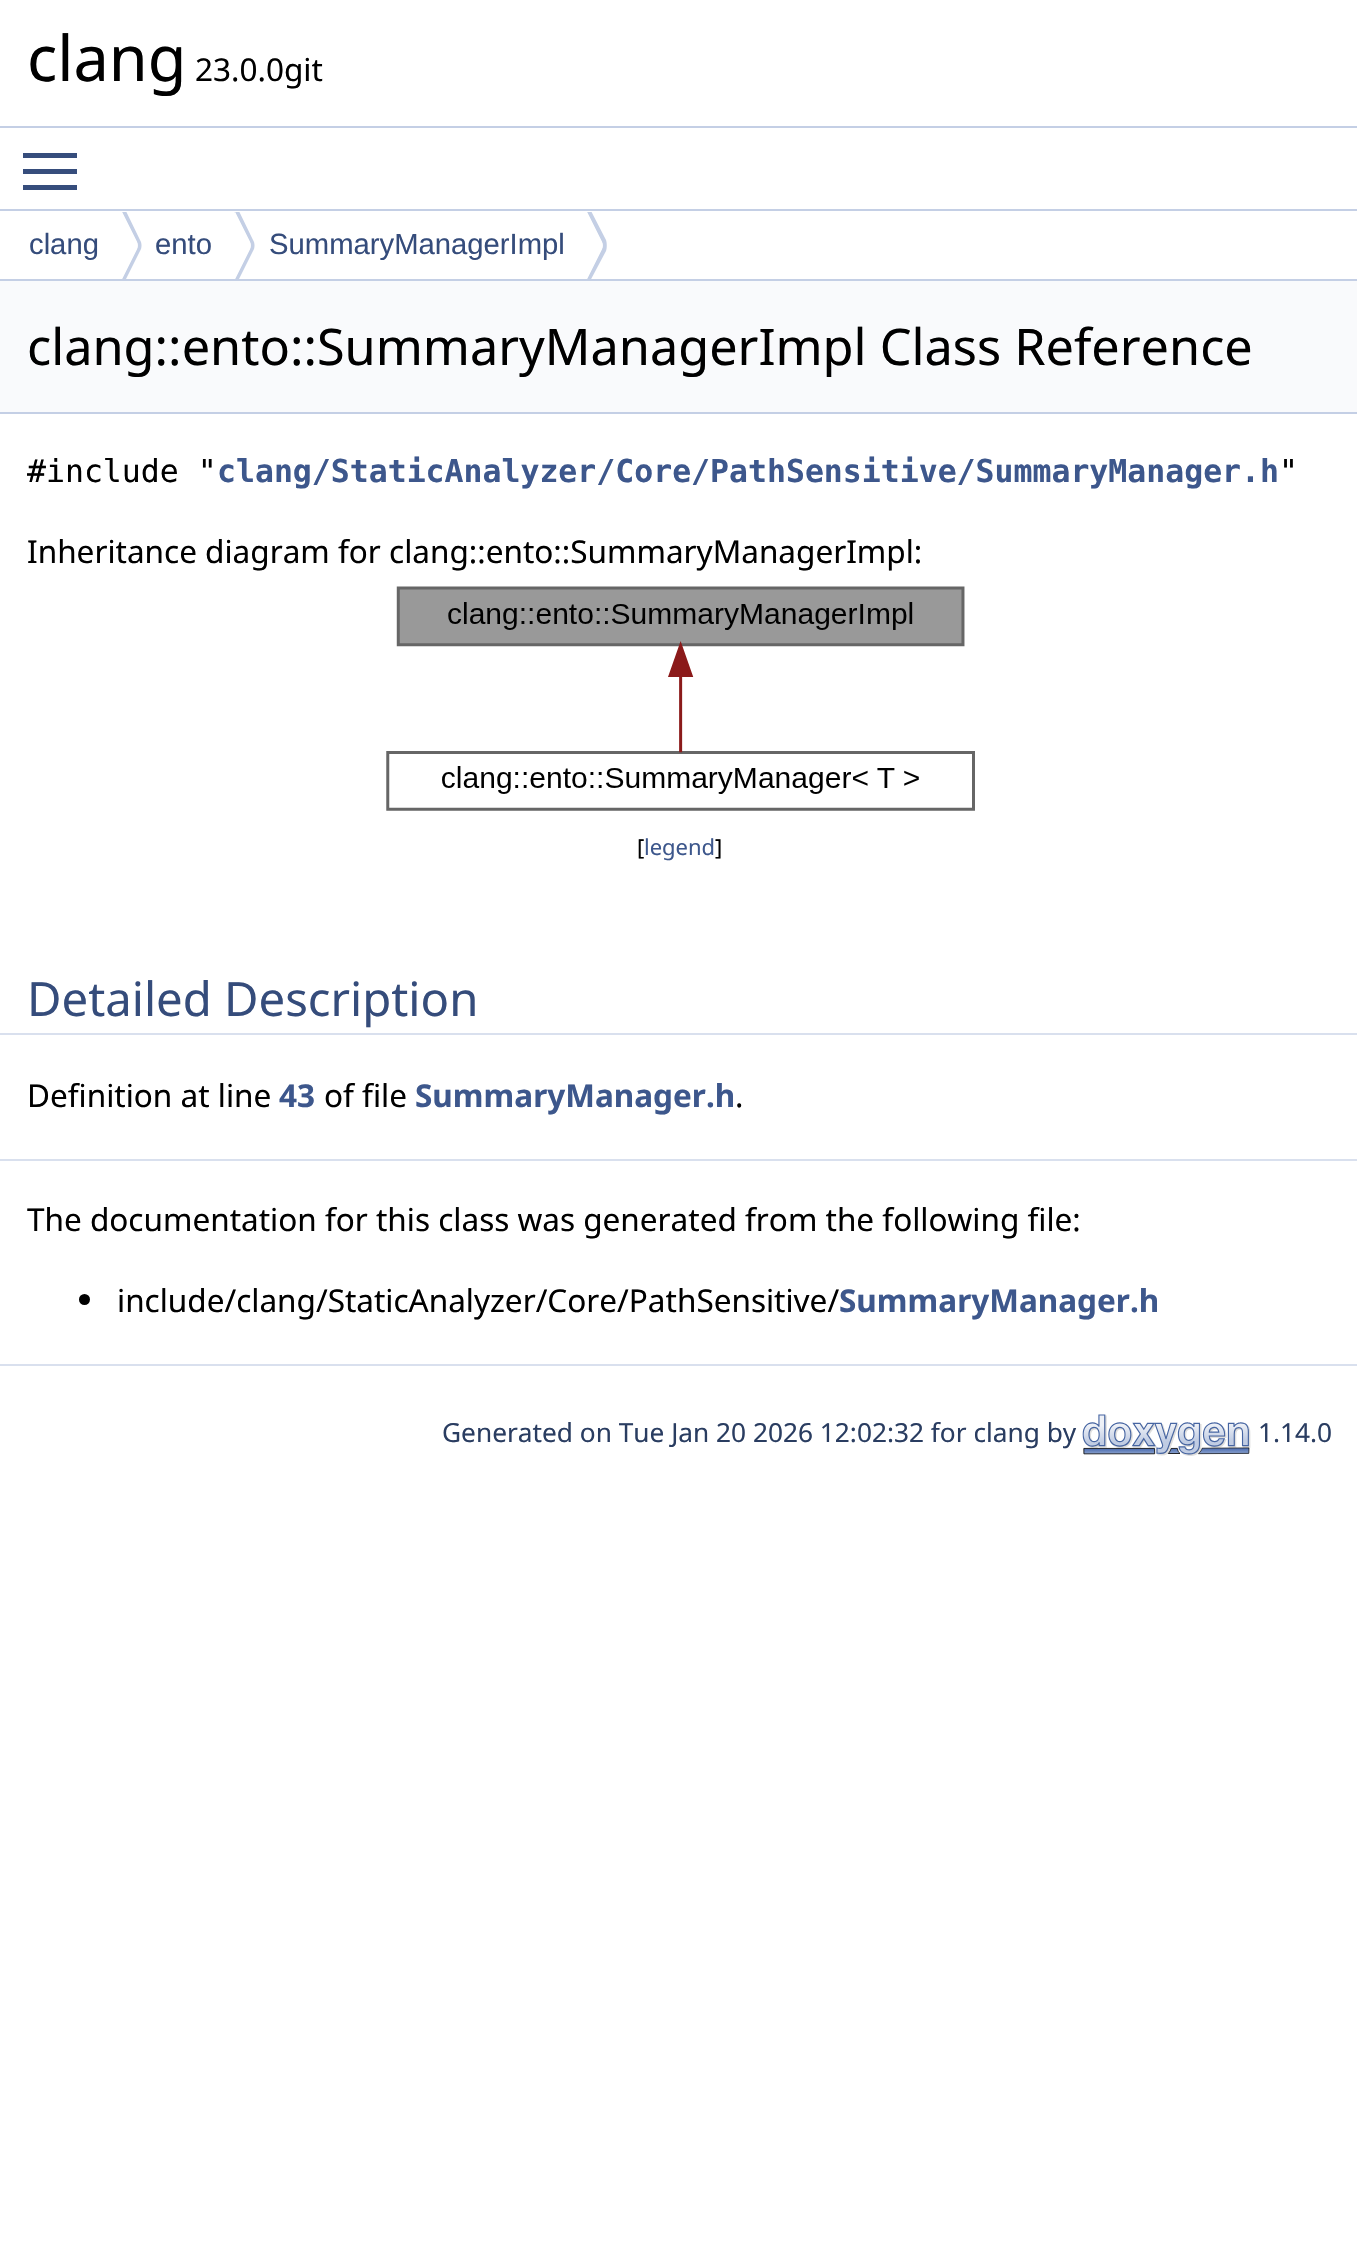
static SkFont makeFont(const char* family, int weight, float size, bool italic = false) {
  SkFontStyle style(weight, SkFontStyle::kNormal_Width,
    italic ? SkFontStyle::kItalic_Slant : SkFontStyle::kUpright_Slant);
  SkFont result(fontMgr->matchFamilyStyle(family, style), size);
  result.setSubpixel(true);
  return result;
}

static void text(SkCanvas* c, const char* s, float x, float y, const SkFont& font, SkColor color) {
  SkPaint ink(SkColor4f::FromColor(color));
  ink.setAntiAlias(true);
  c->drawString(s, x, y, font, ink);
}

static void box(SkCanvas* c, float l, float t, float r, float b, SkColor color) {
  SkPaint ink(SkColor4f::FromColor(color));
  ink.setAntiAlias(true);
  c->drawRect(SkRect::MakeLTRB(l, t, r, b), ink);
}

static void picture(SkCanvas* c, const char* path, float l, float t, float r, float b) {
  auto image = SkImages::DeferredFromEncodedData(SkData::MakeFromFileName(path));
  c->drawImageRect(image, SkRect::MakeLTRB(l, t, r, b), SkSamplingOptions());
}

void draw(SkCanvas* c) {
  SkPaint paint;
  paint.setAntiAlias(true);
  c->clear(0xffffffff);
  box(c, 0, 126, 1357, 128, 0xffc4cfe5);
  SkFont face1 = makeFont("Noto Sans", 400, 63);
  text(c, "clang", 27, 81, face1, 0xff000000);
  SkFont face2 = makeFont("Noto Sans", 400, 31.5f);
  text(c, "23.0.0git", 195, 81, face2, 0xff000000);
  box(c, 23, 169, 77, 174, 0xff364d7c);
  box(c, 23, 153, 77, 158, 0xff364d7c);
  box(c, 23, 185, 77, 190, 0xff364d7c);
  box(c, 0, 209, 1357, 211, 0xffc4cfe5);
  box(c, 0, 279, 1357, 281, 0xffc4cfe5);
  SkFont face3 = makeFont("Liberation Sans", 400, 29.25f);
  text(c, "clang", 29, 254, face3, 0xff354c7b);
  c->save();
  c->clipRect(SkRect::MakeLTRB(0, 212, 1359, 279));
  paint.setColor(0xffc4cfe5);
  c->drawPath(SkPathBuilder().moveTo(124, 207).lineTo(122, 212).lineTo(137, 242).cubicTo(138, 244, 138, 247, 137, 249).lineTo(122, 279).lineTo(124, 283).lineTo(140, 251).cubicTo(142, 248, 142, 243, 140, 240).close().detach(), paint);
  c->restore();
  paint.setColor(0xffffffff);
  c->drawPath(SkPathBuilder().moveTo(122, 212).lineTo(137, 242).cubicTo(138, 244, 138, 247, 137, 249).lineTo(122, 279).cubicTo(112, 260, 112, 230, 122, 212).close().detach(), paint);
  text(c, "ento", 155, 254, face3, 0xff354c7b);
  c->save();
  c->clipRect(SkRect::MakeLTRB(0, 212, 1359, 279));
  paint.setColor(0xffc4cfe5);
  c->drawPath(SkPathBuilder().moveTo(237, 207).lineTo(234, 213).lineTo(235, 212).lineTo(250, 242).cubicTo(251, 244, 251, 247, 250, 249).lineTo(235, 279).lineTo(237, 283).lineTo(253, 251).cubicTo(255, 248, 255, 243, 253, 240).close().detach(), paint);
  c->restore();
  paint.setColor(0xffffffff);
  c->drawPath(SkPathBuilder().moveTo(235, 212).lineTo(250, 242).cubicTo(251, 244, 251, 247, 250, 249).lineTo(235, 279).cubicTo(226, 260, 226, 230, 235, 212).close().detach(), paint);
  text(c, "SummaryManagerImpl", 269, 254, face3, 0xff354c7b);
  c->save();
  c->clipRect(SkRect::MakeLTRB(0, 212, 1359, 279));
  paint.setColor(0xffc4cfe5);
  c->drawPath(SkPathBuilder().moveTo(589, 207).lineTo(585, 217).lineTo(587, 212).lineTo(602, 242).cubicTo(603, 244, 603, 247, 602, 249).lineTo(587, 279).lineTo(589, 283).lineTo(606, 251).cubicTo(607, 248, 607, 243, 606, 240).close().detach(), paint);
  c->restore();
  paint.setColor(0xffffffff);
  c->drawPath(SkPathBuilder().moveTo(587, 212).lineTo(602, 242).cubicTo(603, 244, 603, 247, 602, 249).lineTo(587, 279).cubicTo(578, 260, 578, 230, 587, 212).close().detach(), paint);
  box(c, 0, 281, 1357, 412, 0xfff9fafc);
  box(c, 0, 412, 1357, 414, 0xffc4cfe5);
  SkFont face4 = makeFont("Noto Sans", 400, 50.4f);
  text(c, "clang::ento::SummaryManagerImpl Class Reference", 27, 365, face4, 0xff000000);
  SkFont face5 = makeFont("DejaVu Sans Mono", 400, 31.5f);
  text(c, "#include \"", 27, 482, face5, 0xff000000);
  SkFont face6 = makeFont("DejaVu Sans Mono", 700, 31.5f);
  text(c, "clang/StaticAnalyzer/Core/PathSensitive/SummaryManager.h", 217, 482, face6, 0xff3d578c);
  text(c, "\"", 1279, 482, face5, 0xff000000);
  text(c, "Inheritance diagram for clang::ento::SummaryManagerImpl:", 27, 563, face2, 0xff000000);
  picture(c, "img_01.png", 386, 586, 975, 811);
  SkFont face7 = makeFont("Noto Sans", 400, 22);
  text(c, "[", 637, 855, face7, 0xff000000);
  text(c, "legend", 644, 855, face7, 0xff3d578c);
  text(c, "]", 715, 855, face7, 0xff000000);
  paint.setColor(0xffd9e0ee);
  c->drawPath(SkPathBuilder().moveTo(0, 959).lineTo(0, 1035).lineTo(1305, 1035).lineTo(1305, 1033).lineTo(27, 1033).lineTo(27, 959).close().detach(), paint);
  c->drawPath(SkPathBuilder().moveTo(54, 1033).lineTo(54, 1035).lineTo(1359, 1035).lineTo(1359, 959).lineTo(1332, 959).lineTo(1332, 1033).close().detach(), paint);
  paint.setColor(0xffffffff);
  c->drawPath(SkPathBuilder().moveTo(0, 956).lineTo(0, 1033).lineTo(1305, 1033).lineTo(27, 1033).lineTo(27, 956).lineTo(1305, 956).close().detach(), paint);
  c->drawPath(SkPathBuilder().moveTo(54, 956).lineTo(1332, 956).lineTo(1332, 1033).lineTo(54, 1033).lineTo(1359, 1033).lineTo(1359, 956).close().detach(), paint);
  SkFont face8 = makeFont("Noto Sans", 400, 47.25f);
  text(c, "Detailed Description", 27, 1016, face8, 0xff354c7b);
  text(c, "Definition at line", 27, 1107, face2, 0xff000000);
  SkFont face9 = makeFont("Noto Sans", 700, 31.5f);
  text(c, "43", 279, 1107, face9, 0xff3d578c);
  text(c, "of file", 324, 1107, face2, 0xff000000);
  text(c, "SummaryManager.h", 415, 1107, face9, 0xff3d578c);
  text(c, ".", 735, 1107, face2, 0xff000000);
  box(c, 0, 1159, 1357, 1161, 0xffd9e0ee);
  text(c, "The documentation for this class was generated from the following file:", 27, 1231, face2, 0xff000000);
  paint.setColor(0xff000000);
  c->drawCircle(84.5f, 1299.5f, 5.5f, paint);
  text(c, "include/clang/StaticAnalyzer/Core/PathSensitive/", 117, 1312, face2, 0xff000000);
  text(c, "SummaryManager.h", 839, 1312, face9, 0xff3d578c);
  box(c, 0, 1364, 1357, 1366, 0xffd9e0ee);
  SkFont face10 = makeFont("Noto Sans", 400, 26.25f);
  text(c, "Generated on Tue Jan 20 2026 12:02:32 for clang by", 442, 1442, face10, 0xff2a3d61);
  picture(c, "img_02.png", 1082, 1414, 1251, 1456);
  text(c, "1.14.0", 1258, 1442, face10, 0xff2a3d61);
}
